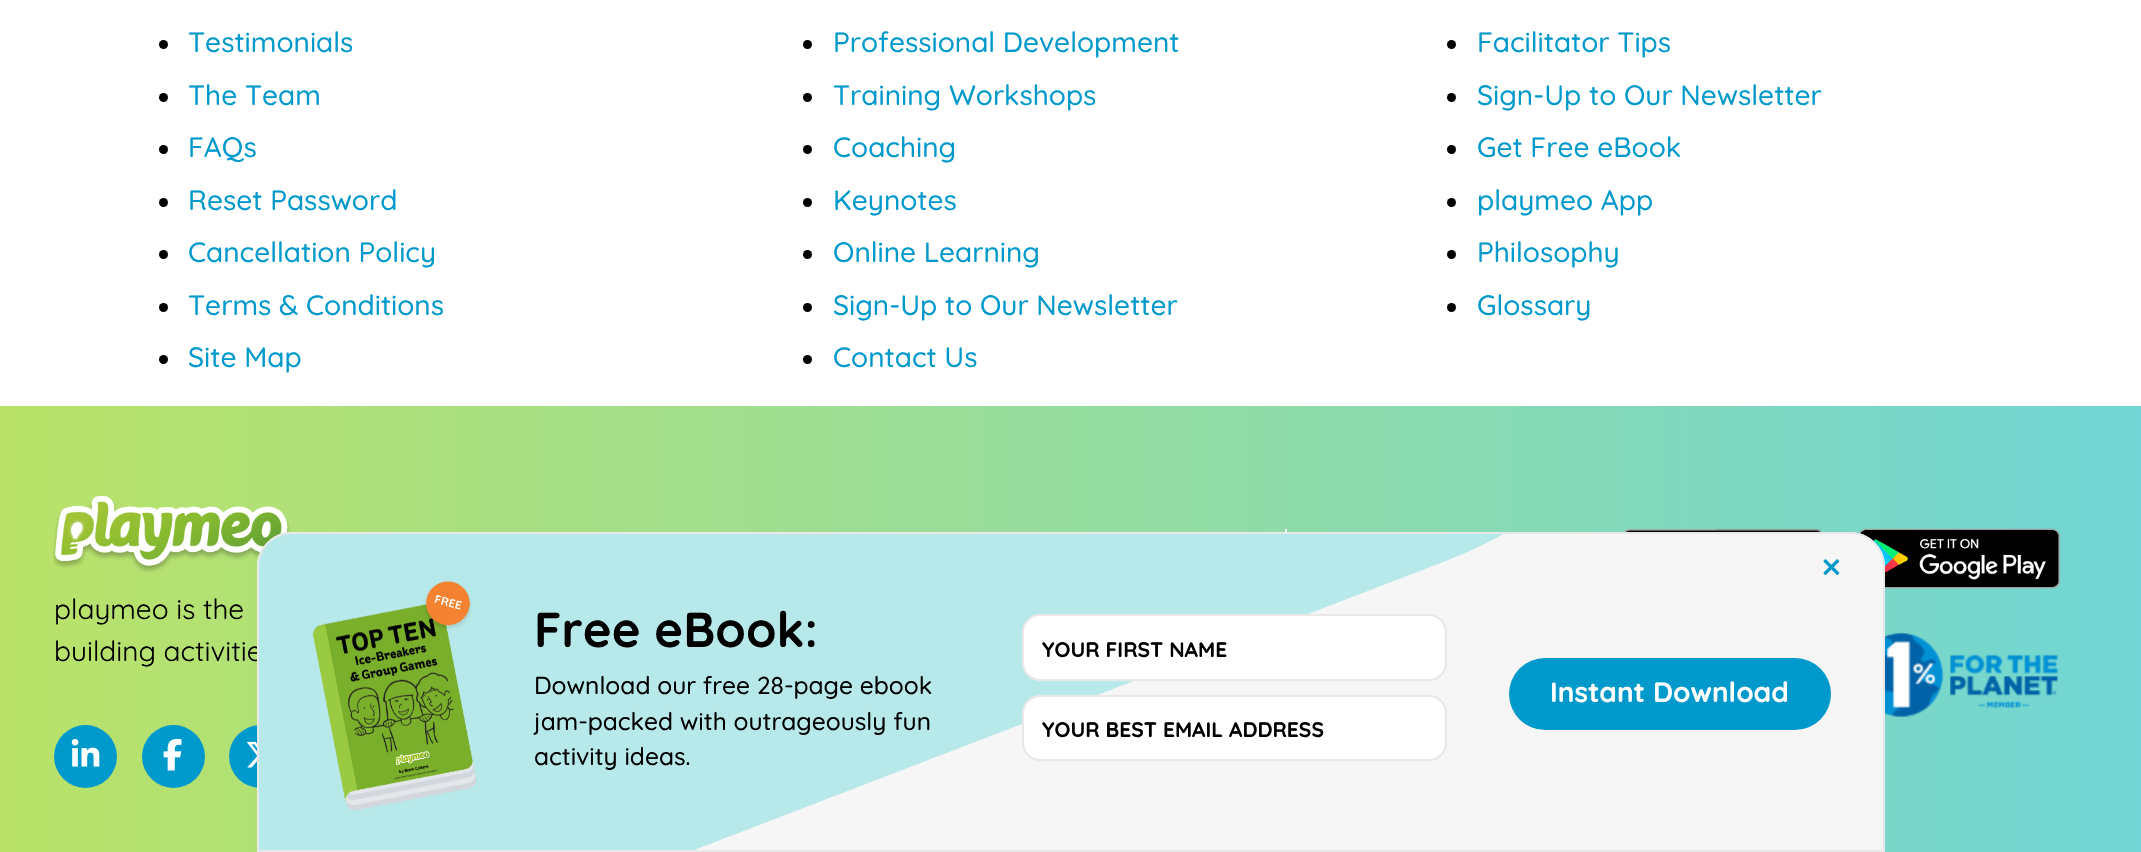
static SkFont makeFont(const char* family, int weight, float size, bool italic = false) {
  SkFontStyle style(weight, SkFontStyle::kNormal_Width,
    italic ? SkFontStyle::kItalic_Slant : SkFontStyle::kUpright_Slant);
  SkFont result(fontMgr->matchFamilyStyle(family, style), size);
  result.setSubpixel(true);
  return result;
}

static void text(SkCanvas* c, const char* s, float x, float y, const SkFont& font, SkColor color) {
  SkPaint ink(SkColor4f::FromColor(color));
  ink.setAntiAlias(true);
  c->drawString(s, x, y, font, ink);
}

static void box(SkCanvas* c, float l, float t, float r, float b, SkColor color) {
  SkPaint ink(SkColor4f::FromColor(color));
  ink.setAntiAlias(true);
  c->drawRect(SkRect::MakeLTRB(l, t, r, b), ink);
}

static void roundBox(SkCanvas* c, float l, float t, float r, float b, float radius, SkColor color) {
  SkPaint ink(SkColor4f::FromColor(color));
  ink.setAntiAlias(true);
  c->drawRoundRect(SkRect::MakeLTRB(l, t, r, b), radius, radius, ink);
}

static void picture(SkCanvas* c, const char* path, float l, float t, float r, float b) {
  auto image = SkImages::DeferredFromEncodedData(SkData::MakeFromFileName(path));
  c->drawImageRect(image, SkRect::MakeLTRB(l, t, r, b), SkSamplingOptions());
}

void draw(SkCanvas* c) {
  SkPaint paint;
  paint.setAntiAlias(true);
  c->clear(0xffffffff);
  paint.setColor(0xff000000);
  c->drawCircle(163.5f, 44.5f, 4.5f, paint);
  SkFont face1 = makeFont("Quicksand", 500, 28);
  text(c, "Testimonials", 188, 52, face1, 0xff0099cc);
  c->drawCircle(163.5f, 97.5f, 4.5f, paint);
  text(c, "The Team", 188, 105, face1, 0xff0099cc);
  c->drawCircle(163.5f, 149.5f, 4.5f, paint);
  text(c, "FAQs", 188, 157, face1, 0xff0099cc);
  c->drawCircle(163.5f, 202.5f, 4.5f, paint);
  text(c, "Reset Password", 188, 210, face1, 0xff0099cc);
  c->drawCircle(163.5f, 254.5f, 4.5f, paint);
  text(c, "Cancellation Policy", 188, 262, face1, 0xff0099cc);
  c->drawCircle(163.5f, 307.5f, 4.5f, paint);
  text(c, "Terms & Conditions", 188, 315, face1, 0xff0099cc);
  c->drawCircle(163.5f, 359.5f, 4.5f, paint);
  text(c, "Site Map", 188, 367, face1, 0xff0099cc);
  c->drawCircle(807.5f, 44.5f, 4.5f, paint);
  text(c, "Professional Development", 833, 52, face1, 0xff0099cc);
  c->drawCircle(807.5f, 97.5f, 4.5f, paint);
  text(c, "Training Workshops", 833, 105, face1, 0xff0099cc);
  c->drawCircle(807.5f, 149.5f, 4.5f, paint);
  text(c, "Coaching", 833, 157, face1, 0xff0099cc);
  c->drawCircle(807.5f, 202.5f, 4.5f, paint);
  text(c, "Keynotes", 833, 210, face1, 0xff0099cc);
  c->drawCircle(807.5f, 254.5f, 4.5f, paint);
  text(c, "Online Learning", 833, 262, face1, 0xff0099cc);
  c->drawCircle(807.5f, 307.5f, 4.5f, paint);
  text(c, "Sign-Up to Our Newsletter", 833, 315, face1, 0xff0099cc);
  c->drawCircle(807.5f, 359.5f, 4.5f, paint);
  text(c, "Contact Us", 833, 367, face1, 0xff0099cc);
  c->drawCircle(1451.5f, 44.5f, 4.5f, paint);
  text(c, "Facilitator Tips", 1477, 52, face1, 0xff0099cc);
  c->drawCircle(1451.5f, 97.5f, 4.5f, paint);
  text(c, "Sign-Up to Our Newsletter", 1477, 105, face1, 0xff0099cc);
  c->drawCircle(1451.5f, 149.5f, 4.5f, paint);
  text(c, "Get Free eBook", 1477, 157, face1, 0xff0099cc);
  c->drawCircle(1451.5f, 202.5f, 4.5f, paint);
  text(c, "playmeo App", 1477, 210, face1, 0xff0099cc);
  c->drawCircle(1451.5f, 254.5f, 4.5f, paint);
  text(c, "Philosophy", 1477, 262, face1, 0xff0099cc);
  c->drawCircle(1451.5f, 307.5f, 4.5f, paint);
  text(c, "Glossary", 1477, 315, face1, 0xff0099cc);
  {
    const SkColor colors[] = {0xffbae268, 0xff71d6d5};
    const float stops[] = {0, 1};
    const SkPoint ends[] = {{0, 749}, {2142, 749}};
    paint.setShader(SkGradientShader::MakeLinear(ends, colors, stops, 2, SkTileMode::kClamp));
    paint.setAlpha(255);
  }
  c->drawRect(SkRect::MakeLTRB(0, 406, 2141, 852), paint);
  picture(c, "img_01.png", 53, 496, 290, 573);
  SkFont face2 = makeFont("Quicksand", 400, 28);
  text(c, "playmeo is the", 54, 619, face2, 0xff000000);
  text(c, "building activitie", 54, 661, face2, 0xff000000);
  paint.setShader(nullptr);
  paint.setColor(0xff0099cc);
  c->drawCircle(85.5f, 756.5f, 31.5f, paint);
  picture(c, "img_02.png", 71, 738, 100, 767);
  c->drawCircle(173.5f, 756.5f, 31.5f, paint);
  picture(c, "img_03.png", 163, 738, 182, 771);
  c->drawCircle(260.5f, 756.5f, 31.5f, paint);
  picture(c, "img_04.png", 246, 741, 257, 768);
  box(c, 1285, 529, 1287, 532, 0xffffffff);
  picture(c, "img_05.png", 1623, 528, 1822, 532);
  picture(c, "img_06.png", 1858, 528, 2060, 589);
  picture(c, "img_07.png", 1885, 632, 2059, 718);
  paint.setColor(0xfff6f6f6);
  c->drawPath(SkPathBuilder().moveTo(292, 532).lineTo(1850, 532).cubicTo(1869.5f, 532, 1885, 547.5f, 1885, 567).lineTo(1885, 852).lineTo(257, 852).lineTo(257, 567).cubicTo(257, 547.5f, 272.5f, 532, 292, 532).close().detach(), paint);
  paint.setColor(0xffb7e9ea);
  c->drawPath(SkPathBuilder().moveTo(292, 532).cubicTo(273, 532, 257, 548, 257, 567).lineTo(257, 852).lineTo(689, 852).lineTo(1451, 559).cubicTo(1471, 551, 1490, 542, 1507, 532).close().detach(), paint);
  paint.setStyle(SkPaint::kStroke_Style);
  paint.setStrokeWidth(2);
  paint.setColor(0xffe8e8e8);
  c->drawPath(SkPathBuilder().moveTo(292, 533).lineTo(1850, 533).cubicTo(1869, 533, 1884, 548, 1884, 567).lineTo(1884, 851).lineTo(258, 851).lineTo(258, 567).cubicTo(258, 548, 273, 533, 292, 533).close().detach(), paint);
  picture(c, "img_08.png", 1823, 559, 1840, 575);
  picture(c, "img_09.png", 312, 581, 477, 811);
  SkFont face3 = makeFont("Quicksand", 700, 49);
  text(c, "Free eBook:", 534, 647, face3, 0xff000000);
  SkFont face4 = makeFont("Quicksand", 500, 24.5f);
  text(c, "Download our free 28-page ebook", 534, 694, face4, 0xff000000);
  text(c, "jam-packed with outrageously fun", 534, 730, face4, 0xff000000);
  text(c, "activity ideas.", 534, 765, face4, 0xff000000);
  paint.setStyle(SkPaint::kFill_Style);
  paint.setColor(0xffffffff);
  c->drawRoundRect(SkRect::MakeLTRB(1023, 615, 1446, 680), 17, 17, paint);
  paint.setStyle(SkPaint::kStroke_Style);
  paint.setColor(0xffe8e8e8);
  c->drawRoundRect(SkRect::MakeLTRB(1023, 615, 1446, 680), 17, 17, paint);
  SkFont face5 = makeFont("Quicksand", 700, 21);
  text(c, "YOUR FIRST NAME", 1042, 657, face5, 0xff000000);
  roundBox(c, 1509, 658, 1831, 730, 36, 0xff0099cc);
  SkFont face6 = makeFont("Quicksand", 700, 28);
  text(c, "Instant Download", 1550, 702, face6, 0xffffffff);
  paint.setStyle(SkPaint::kFill_Style);
  paint.setColor(0xffffffff);
  c->drawRoundRect(SkRect::MakeLTRB(1023, 696, 1446, 760), 17, 17, paint);
  paint.setStyle(SkPaint::kStroke_Style);
  paint.setColor(0xffe8e8e8);
  c->drawRoundRect(SkRect::MakeLTRB(1023, 696, 1446, 760), 17, 17, paint);
  text(c, "YOUR BEST EMAIL ADDRESS", 1042, 737, face5, 0xff000000);
}
